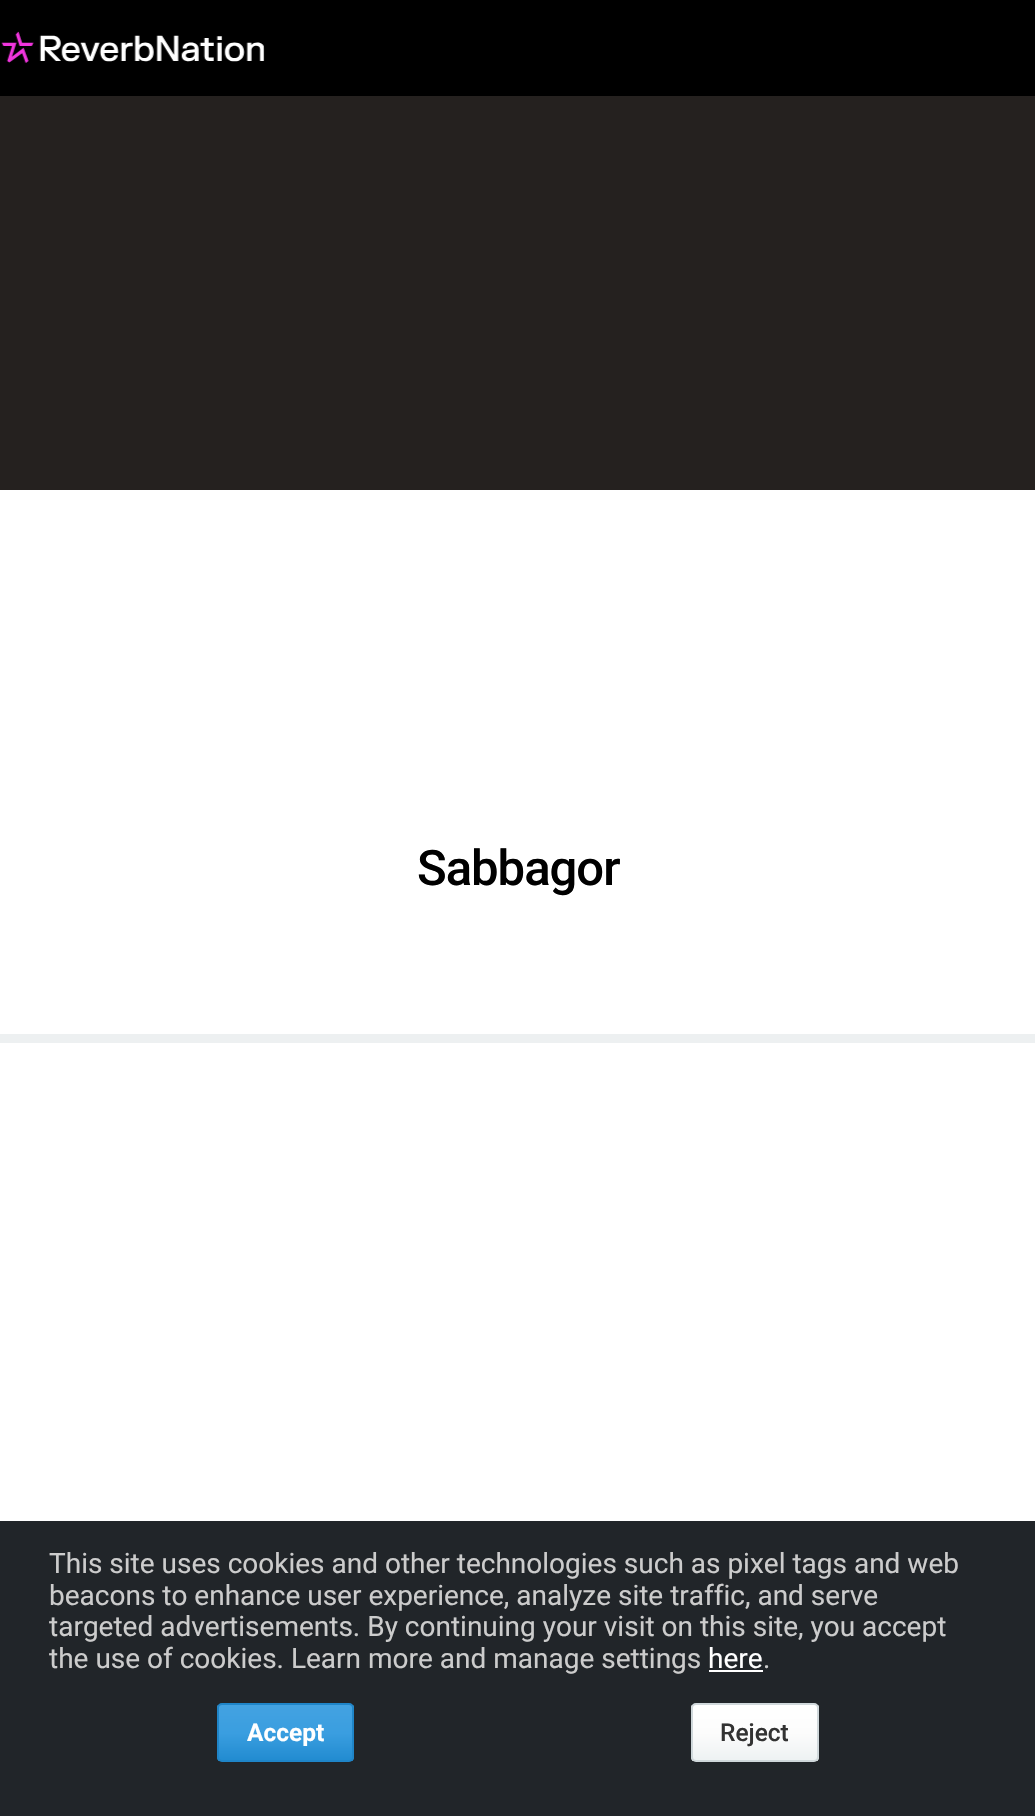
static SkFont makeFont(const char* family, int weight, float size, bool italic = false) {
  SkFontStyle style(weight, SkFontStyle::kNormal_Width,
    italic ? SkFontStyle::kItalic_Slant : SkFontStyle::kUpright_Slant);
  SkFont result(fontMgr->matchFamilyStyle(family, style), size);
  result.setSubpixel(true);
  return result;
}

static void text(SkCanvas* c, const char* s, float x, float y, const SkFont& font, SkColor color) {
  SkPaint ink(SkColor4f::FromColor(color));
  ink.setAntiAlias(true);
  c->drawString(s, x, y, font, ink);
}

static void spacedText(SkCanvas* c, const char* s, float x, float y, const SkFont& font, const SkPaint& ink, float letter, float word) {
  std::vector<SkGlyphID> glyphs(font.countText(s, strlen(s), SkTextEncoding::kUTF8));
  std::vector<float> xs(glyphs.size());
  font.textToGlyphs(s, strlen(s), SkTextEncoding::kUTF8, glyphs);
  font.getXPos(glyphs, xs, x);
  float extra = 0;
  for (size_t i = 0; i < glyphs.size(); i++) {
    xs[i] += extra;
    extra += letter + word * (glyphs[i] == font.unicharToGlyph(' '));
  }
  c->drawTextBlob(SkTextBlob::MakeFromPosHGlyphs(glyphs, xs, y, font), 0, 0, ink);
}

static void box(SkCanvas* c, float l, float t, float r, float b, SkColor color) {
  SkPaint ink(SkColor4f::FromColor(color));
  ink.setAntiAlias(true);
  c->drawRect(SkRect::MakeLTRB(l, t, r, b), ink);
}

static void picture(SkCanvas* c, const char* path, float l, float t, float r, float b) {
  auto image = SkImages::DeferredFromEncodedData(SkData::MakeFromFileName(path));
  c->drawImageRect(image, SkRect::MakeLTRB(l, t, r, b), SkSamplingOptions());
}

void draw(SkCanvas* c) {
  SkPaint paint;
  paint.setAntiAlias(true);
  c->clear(0xffffffff);
  box(c, 0, 0, 1035, 96, 0xff000000);
  picture(c, "img_01.png", 1, 31, 265, 63);
  box(c, 0, 96, 1035, 490, 0xff25211f);
  SkFont face1 = makeFont("Roboto", 500, 49);
  paint.setColor(0xff000000);
  spacedText(c, "Sabbagor", 417, 885, face1, paint, -1, 0);
  box(c, 0, 1034, 1035, 1043, 0xffedf0f1);
  box(c, 0, 1521, 1035, 1816, 0xff212529);
  SkFont face2 = makeFont("Roboto", 400, 28);
  text(c, "This site uses cookies and other technologies such as pixel tags and web", 49, 1573, face2, 0xffcccccc);
  text(c, "beacons to enhance user experience, analyze site traffic, and serve", 49, 1605, face2, 0xffcccccc);
  text(c, "targeted advertisements. By continuing your visit on this site, you accept", 49, 1636, face2, 0xffcccccc);
  text(c, "the use of cookies. Learn more and manage settings", 49, 1668, face2, 0xffcccccc);
  text(c, "here", 708, 1668, face2, 0xffffffff);
  box(c, 709, 1670, 763, 1672, 0xffffffff);
  text(c, ".", 763, 1668, face2, 0xffcccccc);
  c->save();
  c->clipPath(SkPathBuilder().moveTo(222, 1703).lineTo(349, 1703).cubicTo(352, 1703, 354, 1705, 354, 1708).lineTo(354, 1757).cubicTo(354, 1760, 352, 1762, 349, 1762).lineTo(222, 1762).cubicTo(219, 1762, 217, 1760, 217, 1757).lineTo(217, 1708).cubicTo(217, 1705, 219, 1703, 222, 1703).close().detach(), true);
  {
    const SkColor colors[] = {0xff43a2e1, 0xff3a9ee0, 0xff218bd0};
    const float stops[] = {0, 0.5f, 1};
    const SkPoint ends[] = {{285, 1705}, {285, 1761}};
    paint.setShader(SkGradientShader::MakeLinear(ends, colors, stops, 3, SkTileMode::kClamp));
    paint.setAlpha(255);
  }
  c->drawRect(SkRect::MakeLTRB(217, 1705, 354, 1761), paint);
  c->restore();
  paint.setStyle(SkPaint::kStroke_Style);
  paint.setStrokeWidth(2);
  paint.setShader(nullptr);
  paint.setColor(0xff1f85c8);
  c->drawRoundRect(SkRect::MakeLTRB(218, 1704, 353, 1761), 4, 4, paint);
  SkFont face3 = makeFont("Roboto", 700, 24.5f);
  text(c, "Accept", 247, 1741, face3, 0xffffffff);
  c->save();
  c->clipPath(SkPathBuilder().moveTo(696, 1703).lineTo(814, 1703).cubicTo(817, 1703, 819, 1705, 819, 1708).lineTo(819, 1757).cubicTo(819, 1760, 817, 1762, 814, 1762).lineTo(696, 1762).cubicTo(693, 1762, 691, 1760, 691, 1757).lineTo(691, 1708).cubicTo(691, 1705, 693, 1703, 696, 1703).close().detach(), true);
  paint.setStyle(SkPaint::kFill_Style);
  {
    const SkColor colors[] = {0xffffffff, 0xfffcfcfc, 0xffedf1f2};
    const float stops[] = {0, 0.5f, 1};
    const SkPoint ends[] = {{755, 1705}, {755, 1761}};
    paint.setShader(SkGradientShader::MakeLinear(ends, colors, stops, 3, SkTileMode::kClamp));
    paint.setAlpha(255);
  }
  c->drawRect(SkRect::MakeLTRB(691, 1705, 819, 1761), paint);
  c->restore();
  paint.setStyle(SkPaint::kStroke_Style);
  paint.setShader(nullptr);
  paint.setColor(0xffd0d8db);
  c->drawRoundRect(SkRect::MakeLTRB(692, 1704, 818, 1761), 4, 4, paint);
  SkFont face4 = makeFont("Roboto", 500, 24.5f);
  text(c, "Reject", 720, 1741, face4, 0xff333333);
}
